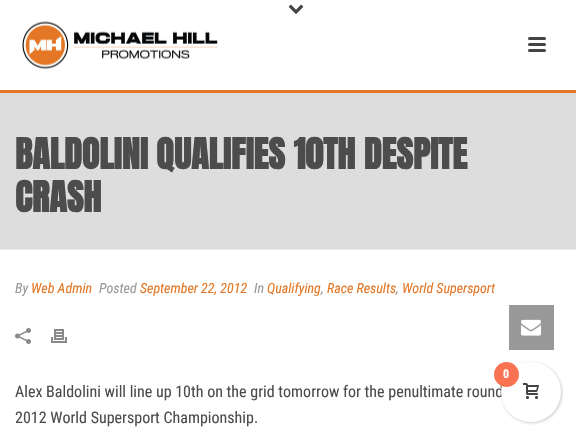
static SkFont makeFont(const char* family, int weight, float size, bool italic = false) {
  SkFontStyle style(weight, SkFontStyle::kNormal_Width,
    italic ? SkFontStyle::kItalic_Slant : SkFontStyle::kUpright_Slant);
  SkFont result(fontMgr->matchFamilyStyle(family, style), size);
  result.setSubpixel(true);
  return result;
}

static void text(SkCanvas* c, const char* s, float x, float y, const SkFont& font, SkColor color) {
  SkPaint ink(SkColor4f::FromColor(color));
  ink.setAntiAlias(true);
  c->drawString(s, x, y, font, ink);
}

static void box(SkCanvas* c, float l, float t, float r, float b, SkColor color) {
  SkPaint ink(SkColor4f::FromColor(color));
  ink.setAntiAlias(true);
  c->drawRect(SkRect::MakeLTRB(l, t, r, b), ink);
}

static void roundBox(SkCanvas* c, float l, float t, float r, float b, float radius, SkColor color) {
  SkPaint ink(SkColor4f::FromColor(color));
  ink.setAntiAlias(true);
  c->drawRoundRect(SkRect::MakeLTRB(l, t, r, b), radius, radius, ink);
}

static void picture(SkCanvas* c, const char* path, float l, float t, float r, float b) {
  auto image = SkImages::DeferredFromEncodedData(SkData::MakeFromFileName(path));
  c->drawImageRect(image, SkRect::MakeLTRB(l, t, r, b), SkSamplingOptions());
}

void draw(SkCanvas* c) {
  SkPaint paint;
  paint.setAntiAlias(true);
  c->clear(0xffffffff);
  box(c, 0, 93, 576, 249, 0xffdddddd);
  box(c, 0, 249, 576, 250, 0xffededed);
  box(c, 0, 90, 576, 93, 0xffe47725);
  picture(c, "img_01.png", 288, 4, 304, 14);
  picture(c, "img_02.png", 22, 21, 218, 69);
  roundBox(c, 528, 37, 546, 40, 1.5f, 0xff444444);
  roundBox(c, 528, 43, 546, 46, 1.5f, 0xff444444);
  roundBox(c, 528, 49, 546, 52, 1.5f, 0xff444444);
  SkFont face1 = makeFont("Anton", 700, 36);
  text(c, "BALDOLINI QUALIFIES 10TH DESPITE", 15, 169, face1, 0xff4c4c4c);
  text(c, "CRASH", 15, 212, face1, 0xff4c4c4c);
  SkFont face2 = makeFont("Roboto Condensed", 400, 14, true);
  text(c, "By", 15, 293, face2, 0xff999999);
  text(c, "Web Admin", 31, 293, face2, 0xffe47725);
  text(c, "Posted", 99, 293, face2, 0xff999999);
  text(c, "September 22, 2012", 140, 293, face2, 0xffe47725);
  text(c, "In", 254, 293, face2, 0xff999999);
  text(c, "Qualifying", 267, 293, face2, 0xffe47725);
  text(c, ",", 321, 293, face2, 0xff999999);
  text(c, "Race Results", 327, 293, face2, 0xffe47725);
  text(c, ",", 396, 293, face2, 0xff999999);
  text(c, "World Supersport", 402, 293, face2, 0xffe47725);
  picture(c, "img_03.png", 15, 328, 31, 344);
  picture(c, "img_04.png", 51, 329, 67, 343);
  SkFont face3 = makeFont("Roboto Condensed", 400, 16);
  text(c, "Alex Baldolini will line up 10th on the grid tomorrow for the penultimate round", 15, 397, face3, 0xff4c4c4c);
  text(c, "2012 World Supersport Championship.", 15, 423, face3, 0xff4c4c4c);
  box(c, 509, 305, 554, 350, 0xff999999);
  picture(c, "img_05.png", 521, 319, 541, 336);
  paint.setColor(0x33000000);
  paint.setMaskFilter(SkMaskFilter::MakeBlur(kNormal_SkBlurStyle, 1.5f));
  c->drawRoundRect(SkRect::MakeLTRB(502, 363, 562, 423), 30, 30, paint);
  paint.setMaskFilter(nullptr);
  paint.setColor(0xffffffff);
  c->drawCircle(531, 392, 30, paint);
  paint.setColor(0xfff97352);
  c->drawCircle(506.5f, 374.5f, 12.5f, paint);
  SkFont face4 = makeFont("Roboto Condensed", 700, 12);
  text(c, "0", 503, 378, face4, 0xffffffff);
  picture(c, "img_06.png", 523, 383, 539, 399);
}
